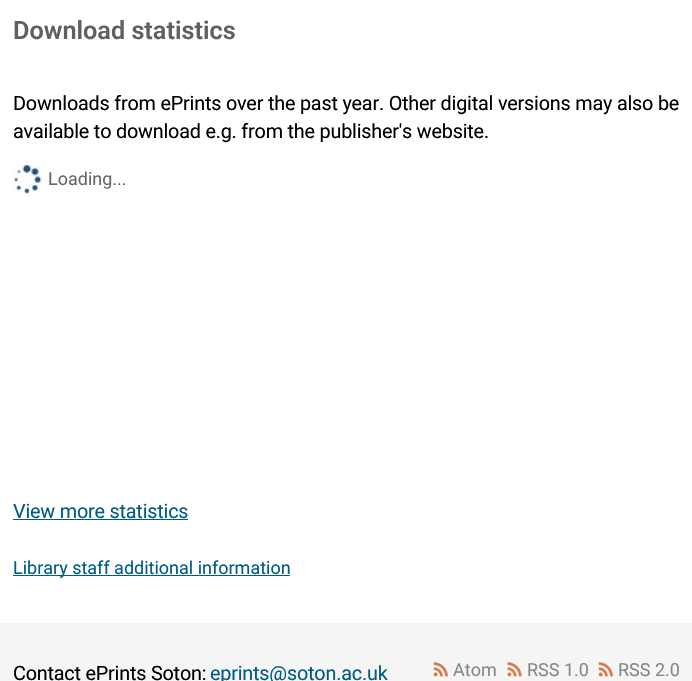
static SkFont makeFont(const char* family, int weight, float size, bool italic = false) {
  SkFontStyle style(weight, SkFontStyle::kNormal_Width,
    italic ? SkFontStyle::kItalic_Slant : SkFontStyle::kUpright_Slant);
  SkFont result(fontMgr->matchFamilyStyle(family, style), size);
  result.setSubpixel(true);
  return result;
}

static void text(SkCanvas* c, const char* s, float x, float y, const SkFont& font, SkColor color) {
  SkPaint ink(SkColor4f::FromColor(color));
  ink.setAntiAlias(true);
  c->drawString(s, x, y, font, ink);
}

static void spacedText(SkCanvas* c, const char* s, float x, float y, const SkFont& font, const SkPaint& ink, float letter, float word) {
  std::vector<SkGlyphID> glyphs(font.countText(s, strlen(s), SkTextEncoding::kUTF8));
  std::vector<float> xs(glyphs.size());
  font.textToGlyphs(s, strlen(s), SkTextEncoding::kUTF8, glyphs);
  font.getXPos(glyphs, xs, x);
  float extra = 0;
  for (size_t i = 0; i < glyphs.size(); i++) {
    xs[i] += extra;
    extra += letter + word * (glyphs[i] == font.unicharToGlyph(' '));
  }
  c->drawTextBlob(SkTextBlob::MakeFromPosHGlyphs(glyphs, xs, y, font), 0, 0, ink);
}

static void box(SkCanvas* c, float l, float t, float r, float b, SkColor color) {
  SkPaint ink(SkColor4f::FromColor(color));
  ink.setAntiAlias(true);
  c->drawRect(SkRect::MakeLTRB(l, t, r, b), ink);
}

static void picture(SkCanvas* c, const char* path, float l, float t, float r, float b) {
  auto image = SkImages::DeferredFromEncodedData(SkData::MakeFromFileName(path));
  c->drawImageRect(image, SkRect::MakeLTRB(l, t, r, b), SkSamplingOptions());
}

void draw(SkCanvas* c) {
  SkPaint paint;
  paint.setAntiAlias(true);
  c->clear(0xffffffff);
  SkFont face1 = makeFont("Roboto", 600, 25.25f);
  text(c, "Download statistics", 13, 39, face1, 0xff606060);
  SkFont face2 = makeFont("Roboto", 400, 19.8f);
  paint.setColor(0xff000000);
  spacedText(c, "Downloads from ePrints over the past year. Other digital versions may also be", 13, 110, face2, paint, -0.2f, 0);
  spacedText(c, "available to download e.g. from the publisher's website.", 13, 138, face2, paint, -0.2f, 0);
  picture(c, "img_01.png", 13, 165, 42, 194);
  SkFont face3 = makeFont("Roboto", 400, 18);
  text(c, "Loading...", 48, 185, face3, 0xff666666);
  paint.setColor(0xff005c85);
  spacedText(c, "View more statistics", 13, 518, face2, paint, -0.2f, 0);
  box(c, 13, 519, 188, 520, 0xff005c85);
  box(c, 13, 575, 290, 576, 0xff005c85);
  text(c, "Library staff additional information", 13, 574, face3, 0xff005c85);
  box(c, 0, 623, 692, 681, 0xfff5f5f5);
  paint.setColor(0xff000000);
  spacedText(c, "Contact ePrints Soton:", 13, 680, face2, paint, -0.2f, 0);
  paint.setColor(0xff005c85);
  spacedText(c, "eprints@soton.ac.uk", 210, 680, face2, paint, -0.2f, 0);
  picture(c, "img_02.png", 433, 662, 448, 677);
  text(c, "Atom", 453, 676, face3, 0xff888888);
  picture(c, "img_03.png", 507, 662, 522, 677);
  text(c, "RSS 1.0", 527, 676, face3, 0xff888888);
  picture(c, "img_02.png", 598, 662, 613, 677);
  text(c, "RSS 2.0", 618, 676, face3, 0xff888888);
}
